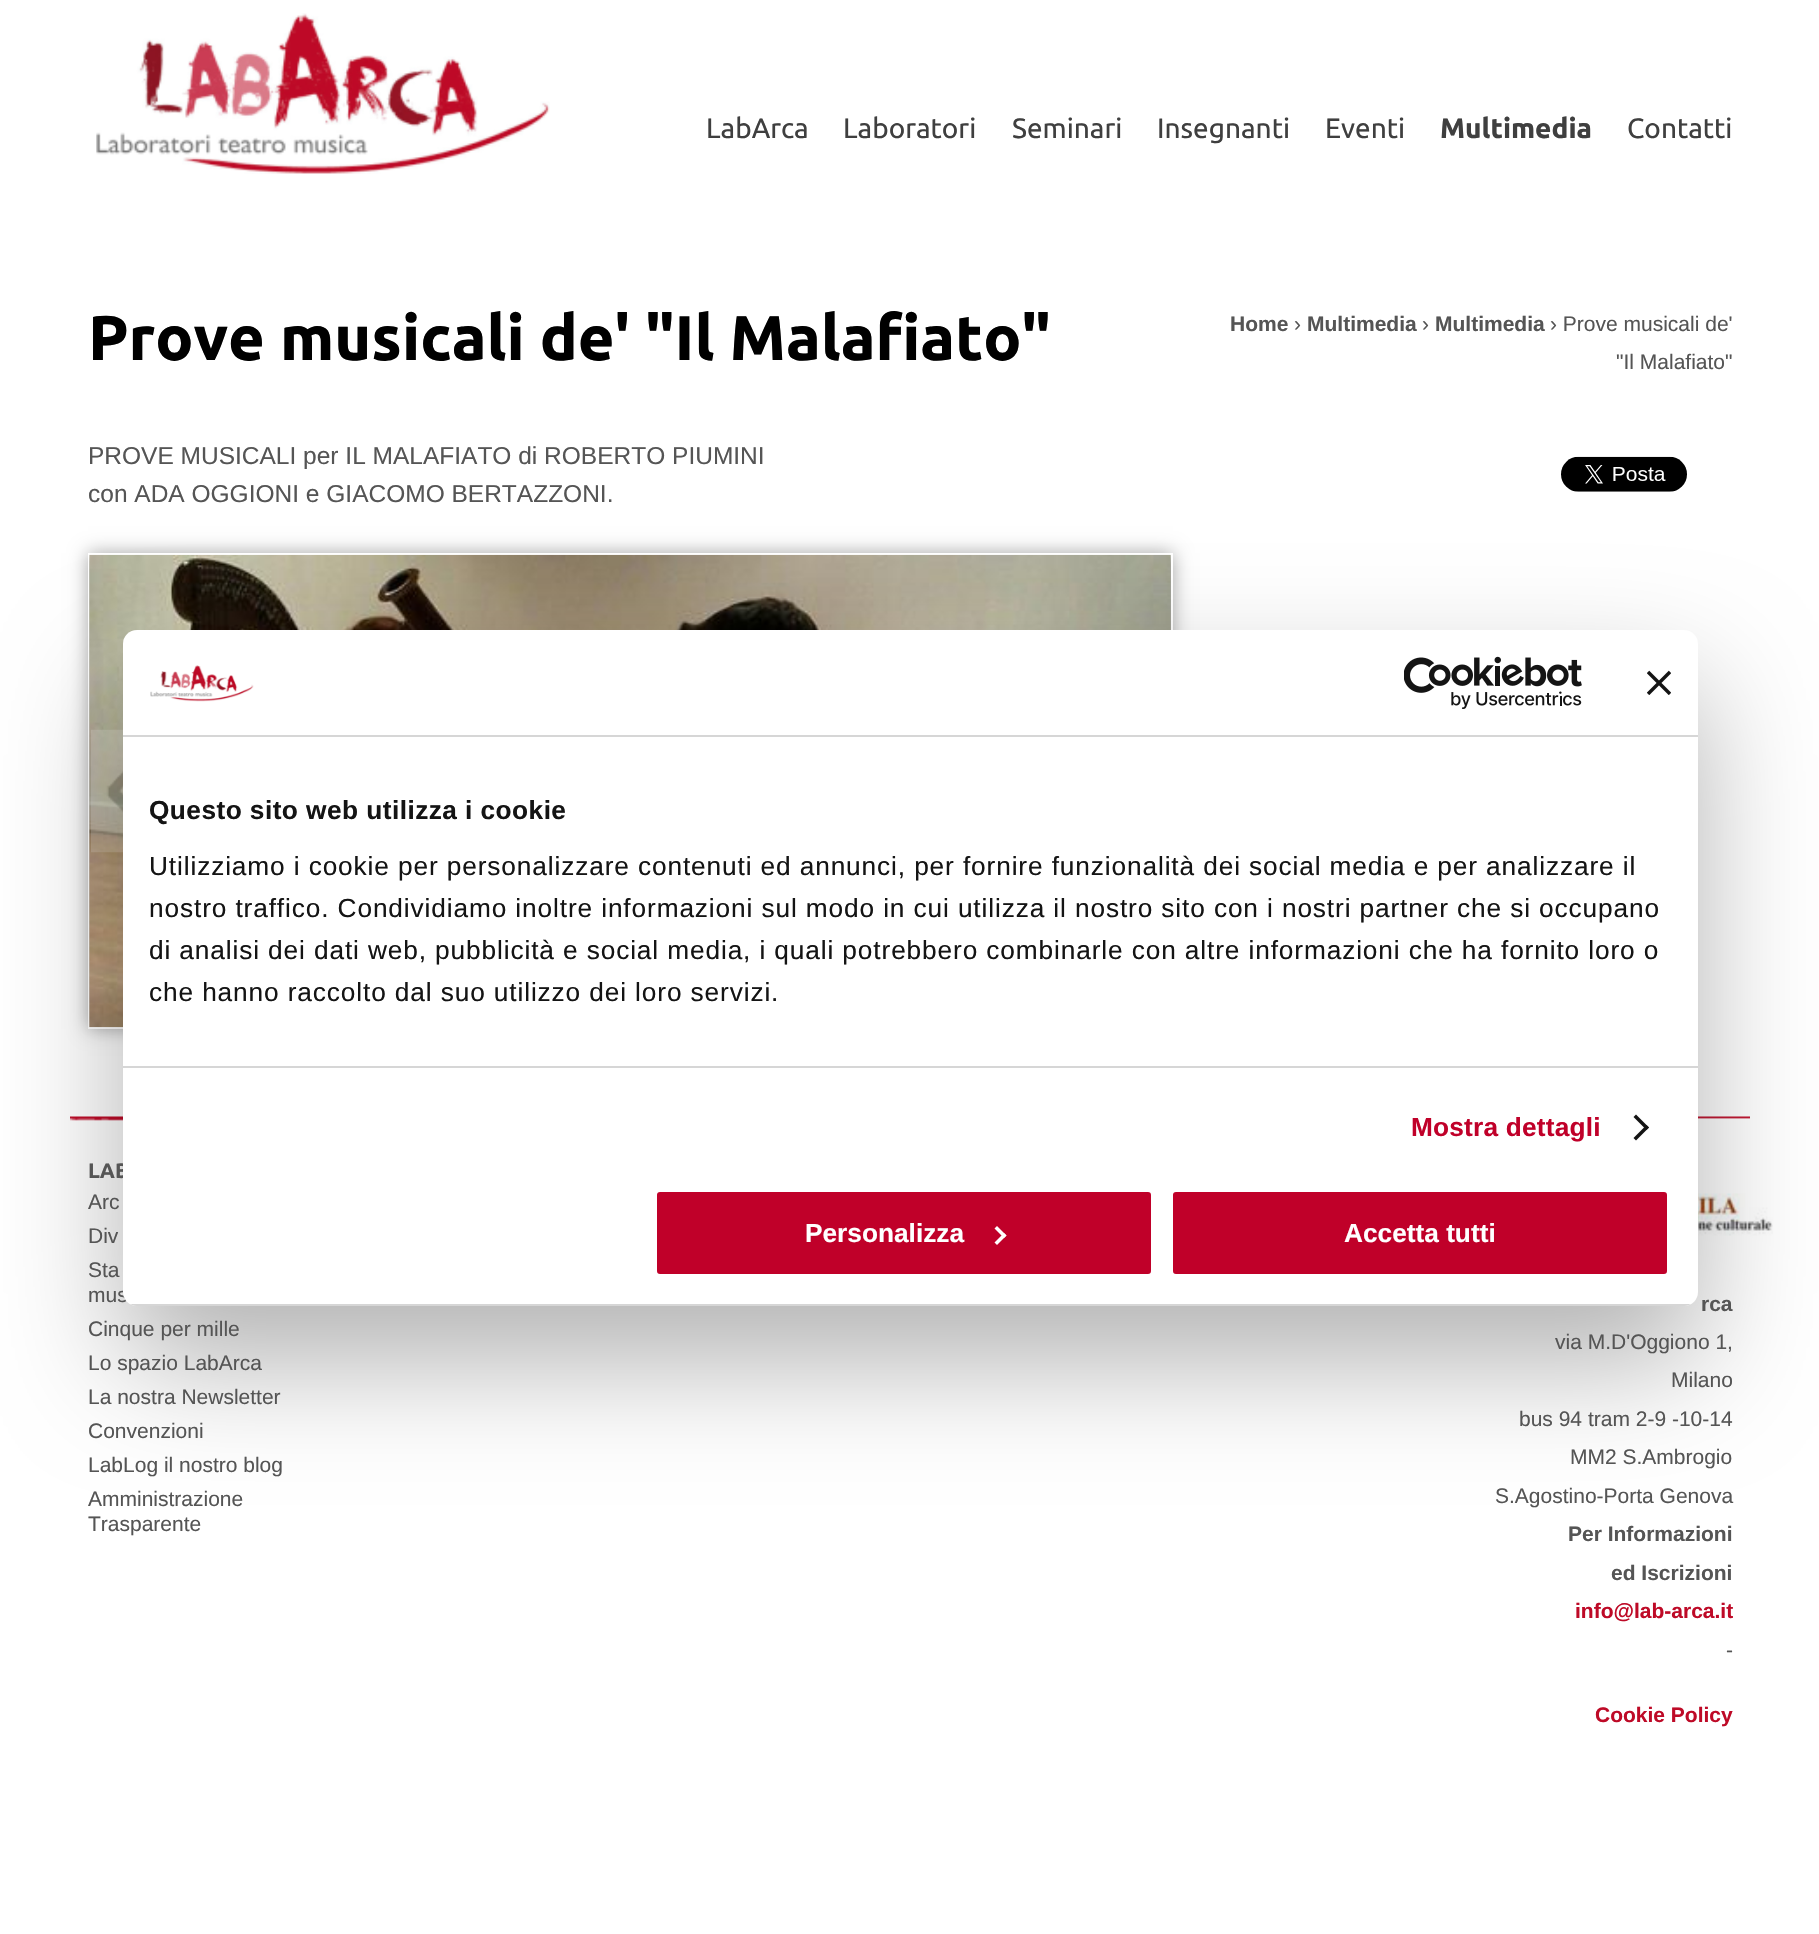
static SkFont makeFont(const char* family, int weight, float size, bool italic = false) {
  SkFontStyle style(weight, SkFontStyle::kNormal_Width,
    italic ? SkFontStyle::kItalic_Slant : SkFontStyle::kUpright_Slant);
  SkFont result(fontMgr->matchFamilyStyle(family, style), size);
  result.setSubpixel(true);
  return result;
}

static void text(SkCanvas* c, const char* s, float x, float y, const SkFont& font, SkColor color) {
  SkPaint ink(SkColor4f::FromColor(color));
  ink.setAntiAlias(true);
  c->drawString(s, x, y, font, ink);
}

static void spacedText(SkCanvas* c, const char* s, float x, float y, const SkFont& font, const SkPaint& ink, float letter, float word) {
  std::vector<SkGlyphID> glyphs(font.countText(s, strlen(s), SkTextEncoding::kUTF8));
  std::vector<float> xs(glyphs.size());
  font.textToGlyphs(s, strlen(s), SkTextEncoding::kUTF8, glyphs);
  font.getXPos(glyphs, xs, x);
  float extra = 0;
  for (size_t i = 0; i < glyphs.size(); i++) {
    xs[i] += extra;
    extra += letter + word * (glyphs[i] == font.unicharToGlyph(' '));
  }
  c->drawTextBlob(SkTextBlob::MakeFromPosHGlyphs(glyphs, xs, y, font), 0, 0, ink);
}

static void box(SkCanvas* c, float l, float t, float r, float b, SkColor color) {
  SkPaint ink(SkColor4f::FromColor(color));
  ink.setAntiAlias(true);
  c->drawRect(SkRect::MakeLTRB(l, t, r, b), ink);
}

static void roundBox(SkCanvas* c, float l, float t, float r, float b, float radius, SkColor color) {
  SkPaint ink(SkColor4f::FromColor(color));
  ink.setAntiAlias(true);
  c->drawRoundRect(SkRect::MakeLTRB(l, t, r, b), radius, radius, ink);
}

static void picture(SkCanvas* c, const char* path, float l, float t, float r, float b) {
  auto image = SkImages::DeferredFromEncodedData(SkData::MakeFromFileName(path));
  c->drawImageRect(image, SkRect::MakeLTRB(l, t, r, b), SkSamplingOptions());
}

void draw(SkCanvas* c) {
  SkPaint paint;
  paint.setAntiAlias(true);
  c->clear(0xffffffff);
  picture(c, "img_01.png", 96, 13, 550, 174);
  SkFont face1 = makeFont("Ubuntu", 400, 28);
  text(c, "LabArca", 706, 138, face1, 0xff3f3f3f);
  text(c, "Laboratori", 843, 138, face1, 0xff3f3f3f);
  text(c, "Seminari", 1012, 138, face1, 0xff3f3f3f);
  text(c, "Insegnanti", 1157, 138, face1, 0xff3f3f3f);
  text(c, "Eventi", 1325, 138, face1, 0xff3f3f3f);
  SkFont face2 = makeFont("Ubuntu", 700, 28);
  text(c, "Multimedia", 1440, 138, face2, 0xff3f3f3f);
  text(c, "Contatti", 1627, 138, face1, 0xff3f3f3f);
  SkFont face3 = makeFont("Ubuntu", 700, 63);
  text(c, "Prove musicali de' \"Il Malafiato\"", 88, 360, face3, 0xff000000);
  SkFont face4 = makeFont("Liberation Sans", 700, 21);
  text(c, "Home", 1230, 331, face4, 0xff555555);
  SkFont face5 = makeFont("Liberation Sans", 400, 21);
  text(c, "›", 1294, 331, face5, 0xff555555);
  text(c, "Multimedia", 1307, 331, face4, 0xff555555);
  text(c, "›", 1422, 331, face5, 0xff555555);
  text(c, "Multimedia", 1435, 331, face4, 0xff555555);
  text(c, "› Prove musicali de'", 1550, 331, face5, 0xff555555);
  text(c, "\"Il Malafiato\"", 1616, 369, face5, 0xff555555);
  SkFont face6 = makeFont("Liberation Sans", 400, 24.5f);
  text(c, "PROVE MUSICALI per IL MALAFIATO di ROBERTO PIUMINI", 88, 464, face6, 0xff555555);
  text(c, "con ADA OGGIONI e GIACOMO BERTAZZONI.", 88, 502, face6, 0xff555555);
  paint.setColor(0x59000000);
  paint.setMaskFilter(SkMaskFilter::MakeBlur(kNormal_SkBlurStyle, 9));
  c->drawRect(SkRect::MakeLTRB(88, 553, 1173, 1029), paint);
  paint.setMaskFilter(nullptr);
  paint.setStyle(SkPaint::kStroke_Style);
  paint.setStrokeWidth(2);
  paint.setColor(0xffffffff);
  c->drawRect(SkRect::MakeLTRB(89, 554, 1172, 1028), paint);
  c->save();
  c->clipRect(SkRect::MakeLTRB(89, 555, 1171, 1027));
  paint.setStyle(SkPaint::kFill_Style);
  paint.setColor(0x59000000);
  paint.setMaskFilter(SkMaskFilter::MakeBlur(kNormal_SkBlurStyle, 3.5f));
  c->drawRect(SkRect::MakeLTRB(89, 558, 1171, 1031), paint);
  paint.setMaskFilter(nullptr);
  c->restore();
  picture(c, "img_02.png", 89, 554, 1171, 1028);
  picture(c, "img_03.png", 91, 729, 123, 853);
  picture(c, "img_04.png", 1561, 456, 1687, 492);
  picture(c, "img_08.png", 70, 1116, 1750, 1126);
  picture(c, "img_09.png", 1698, 1151, 1773, 1272);
  paint.setColor(0x4d000000);
  paint.setMaskFilter(SkMaskFilter::MakeBlur(kNormal_SkBlurStyle, 59.5f));
  c->drawRoundRect(SkRect::MakeLTRB(123, 686, 1698, 1362), 14, 14, paint);
  paint.setMaskFilter(nullptr);
  SkFont face7 = makeFont("Ubuntu", 700, 21);
  text(c, "LAB", 88, 1178, face7, 0xff555555);
  text(c, "mus", 88, 1302, face5, 0xff555555);
  roundBox(c, 123, 630, 1698, 1306, 14, 0xffffffff);
  box(c, 123, 735, 1698, 737, 0xffd6d6d6);
  picture(c, "img_05.png", 150, 665, 254, 702);
  picture(c, "img_06.png", 1404, 656, 1582, 709);
  picture(c, "img_07.png", 1647, 670, 1671, 695);
  box(c, 123, 1066, 1698, 1068, 0xffd6d6d6);
  SkFont face8 = makeFont("Liberation Sans", 700, 26.25f);
  paint.setColor(0xff141414);
  spacedText(c, "Questo sito web utilizza i cookie", 149, 819, face8, paint, 0.45f, 0);
  SkFont face9 = makeFont("Liberation Sans", 400, 26.25f);
  spacedText(c, "Utilizziamo i cookie per personalizzare contenuti ed annunci, per fornire funzionalità dei social media e per analizzare il", 149, 875, face9, paint, 0.88f, 0);
  spacedText(c, "nostro traffico. Condividiamo inoltre informazioni sul modo in cui utilizza il nostro sito con i nostri partner che si occupano", 149, 917, face9, paint, 0.88f, 0);
  spacedText(c, "di analisi dei dati web, pubblicità e social media, i quali potrebbero combinarle con altre informazioni che ha fornito loro o", 149, 959, face9, paint, 0.88f, 0);
  spacedText(c, "che hanno raccolto dal suo utilizzo dei loro servizi.", 149, 1001, face9, paint, 0.88f, 0);
  paint.setColor(0xffc00029);
  spacedText(c, "Mostra dettagli", 1411, 1136, face8, paint, 0.2f, 0);
  paint.setColor(0xff141414);
  c->drawPath(SkPathBuilder().moveTo(1636, 1114.5f).lineTo(1649, 1127.5f).lineTo(1646.5f, 1130).lineTo(1633.5f, 1117).close().detach(), paint);
  c->drawPath(SkPathBuilder().moveTo(1646.5f, 1125).lineTo(1649, 1127.5f).lineTo(1636, 1140.5f).lineTo(1633.5f, 1138).close().detach(), paint);
  c->save();
  c->clipPath(SkPathBuilder().moveTo(137, 630).lineTo(1684, 630).cubicTo(1691.5f, 630, 1698, 636.5f, 1698, 644).lineTo(1698, 1292).cubicTo(1698, 1299.5f, 1691.5f, 1306, 1684, 1306).lineTo(137, 1306).cubicTo(129.5f, 1306, 123, 1299.5f, 123, 1292).lineTo(123, 644).cubicTo(123, 636.5f, 129.5f, 630, 137, 630).close().detach(), true);
  box(c, 123, 1304, 1698, 1306, 0xffd6d6d6);
  c->restore();
  paint.setColor(0xffc00029);
  c->drawRoundRect(SkRect::MakeLTRB(655, 1190, 1153, 1276), 5, 5, paint);
  paint.setStyle(SkPaint::kStroke_Style);
  paint.setStrokeWidth(4);
  paint.setColor(0xffffffff);
  c->drawRoundRect(SkRect::MakeLTRB(655, 1190, 1153, 1276), 5, 5, paint);
  text(c, "Personalizza", 805, 1242, face8, 0xffffffff);
  paint.setStyle(SkPaint::kFill_Style);
  c->drawPath(SkPathBuilder().moveTo(997, 1226).lineTo(1006.5f, 1235.5f).lineTo(1004, 1238).lineTo(994.5f, 1228.5f).close().detach(), paint);
  c->drawPath(SkPathBuilder().moveTo(1004, 1233).lineTo(1006.5f, 1235.5f).lineTo(997, 1245).lineTo(994.5f, 1242.5f).close().detach(), paint);
  paint.setColor(0xffc00029);
  c->drawRoundRect(SkRect::MakeLTRB(1171, 1190, 1669, 1276), 5, 5, paint);
  paint.setStyle(SkPaint::kStroke_Style);
  paint.setColor(0xffffffff);
  c->drawRoundRect(SkRect::MakeLTRB(1171, 1190, 1669, 1276), 5, 5, paint);
  text(c, "Accetta tutti", 1344, 1242, face8, 0xffffffff);
  text(c, "Arc", 88, 1209, face5, 0xff555555);
  text(c, "Div", 88, 1243, face5, 0xff555555);
  text(c, "Sta", 88, 1277, face5, 0xff555555);
  text(c, "Cinque per mille", 88, 1336, face5, 0xff555555);
  text(c, "Lo spazio LabArca", 88, 1370, face5, 0xff555555);
  text(c, "La nostra Newsletter", 88, 1404, face5, 0xff555555);
  text(c, "Convenzioni", 88, 1438, face5, 0xff555555);
  text(c, "LabLog il nostro blog", 88, 1472, face5, 0xff555555);
  text(c, "Amministrazione", 88, 1506, face5, 0xff555555);
  text(c, "Trasparente", 88, 1531, face5, 0xff555555);
  text(c, "rca", 1701, 1311, face4, 0xff555555);
  text(c, "via M.D'Oggiono 1,", 1555, 1349, face5, 0xff555555);
  text(c, "Milano", 1671, 1387, face5, 0xff555555);
  text(c, "bus 94 tram 2-9 -10-14", 1519, 1426, face5, 0xff555555);
  text(c, "MM2 S.Ambrogio", 1570, 1464, face5, 0xff555555);
  text(c, "S.Agostino-Porta Genova", 1495, 1503, face5, 0xff555555);
  text(c, "Per Informazioni", 1568, 1541, face4, 0xff555555);
  text(c, "ed Iscrizioni", 1611, 1580, face4, 0xff555555);
  text(c, "info@lab-arca.it", 1575, 1618, face4, 0xffbe0a27);
  text(c, "-", 1726, 1657, face5, 0xff555555);
  text(c, "Cookie Policy", 1595, 1722, face4, 0xffbe0a27);
}
